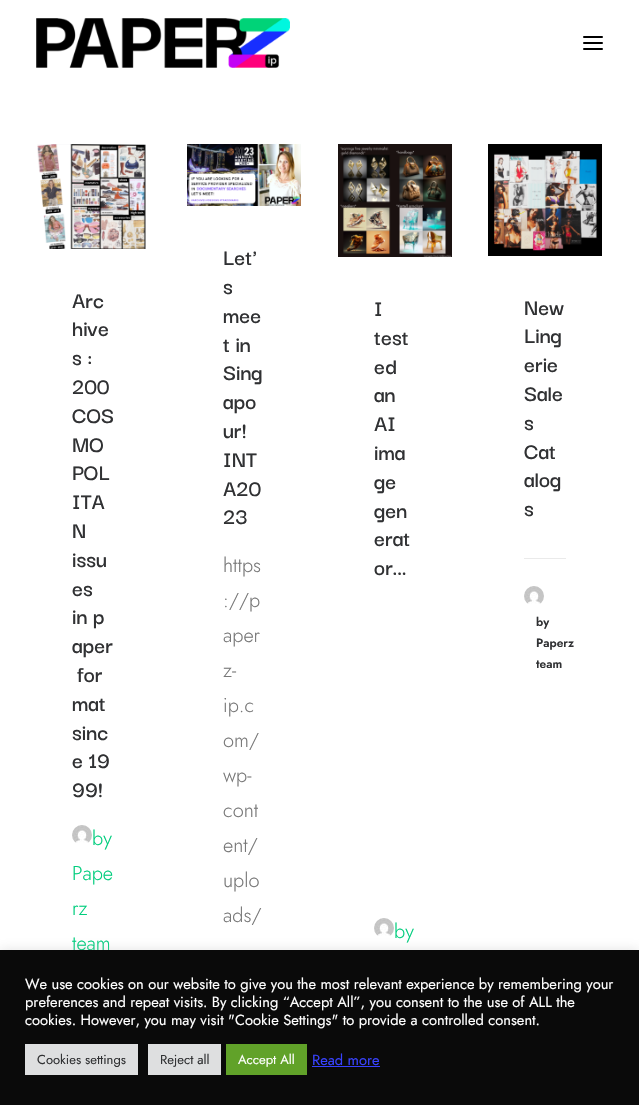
static SkFont makeFont(const char* family, int weight, float size, bool italic = false) {
  SkFontStyle style(weight, SkFontStyle::kNormal_Width,
    italic ? SkFontStyle::kItalic_Slant : SkFontStyle::kUpright_Slant);
  SkFont result(fontMgr->matchFamilyStyle(family, style), size);
  result.setSubpixel(true);
  return result;
}

static void text(SkCanvas* c, const char* s, float x, float y, const SkFont& font, SkColor color) {
  SkPaint ink(SkColor4f::FromColor(color));
  ink.setAntiAlias(true);
  c->drawString(s, x, y, font, ink);
}

static void box(SkCanvas* c, float l, float t, float r, float b, SkColor color) {
  SkPaint ink(SkColor4f::FromColor(color));
  ink.setAntiAlias(true);
  c->drawRect(SkRect::MakeLTRB(l, t, r, b), ink);
}

static void roundBox(SkCanvas* c, float l, float t, float r, float b, float radius, SkColor color) {
  SkPaint ink(SkColor4f::FromColor(color));
  ink.setAntiAlias(true);
  c->drawRoundRect(SkRect::MakeLTRB(l, t, r, b), radius, radius, ink);
}

static void picture(SkCanvas* c, const char* path, float l, float t, float r, float b) {
  auto image = SkImages::DeferredFromEncodedData(SkData::MakeFromFileName(path));
  c->drawImageRect(image, SkRect::MakeLTRB(l, t, r, b), SkSamplingOptions());
}

void draw(SkCanvas* c) {
  SkPaint paint;
  paint.setAntiAlias(true);
  c->clear(0xffffffff);
  picture(c, "img_01.png", 36, 18, 290, 68);
  roundBox(c, 583, 42, 603, 44, 1, 0xff000000);
  roundBox(c, 583, 36, 603, 38, 1, 0xff000000);
  roundBox(c, 583, 48, 603, 50, 1, 0xff000000);
  picture(c, "img_02.png", 37, 144, 146, 249);
  SkFont face1 = makeFont("Darker Grotesque", 600, 24);
  text(c, "Arc", 72, 308, face1, 0xff303133);
  text(c, "hive", 72, 336, face1, 0xff303133);
  text(c, "s :", 72, 365, face1, 0xff303133);
  text(c, "200", 72, 394, face1, 0xff303133);
  text(c, "COS", 72, 423, face1, 0xff303133);
  text(c, "MO", 72, 452, face1, 0xff303133);
  text(c, "POL", 72, 480, face1, 0xff303133);
  text(c, "ITA", 72, 509, face1, 0xff303133);
  text(c, "N", 72, 538, face1, 0xff303133);
  text(c, "issu", 72, 567, face1, 0xff303133);
  text(c, "es", 72, 596, face1, 0xff303133);
  text(c, "in p", 72, 624, face1, 0xff303133);
  text(c, "aper", 72, 653, face1, 0xff303133);
  text(c, "for", 77, 682, face1, 0xff303133);
  text(c, "mat", 72, 711, face1, 0xff303133);
  text(c, "sinc", 72, 740, face1, 0xff303133);
  text(c, "e 19", 72, 768, face1, 0xff303133);
  text(c, "99!", 72, 797, face1, 0xff303133);
  picture(c, "img_03.png", 72, 825, 92, 843);
  SkFont face2 = makeFont("Jost", 300, 20);
  text(c, "by", 92, 845, face2, 0xff00cd7d);
  text(c, "Pape", 72, 880, face2, 0xff00cd7d);
  text(c, "rz", 72, 915, face2, 0xff00cd7d);
  text(c, "team", 72, 950, face2, 0xff00cd7d);
  picture(c, "img_04.png", 187, 144, 301, 206);
  text(c, "Let'", 223, 265, face1, 0xff303133);
  text(c, "s", 223, 294, face1, 0xff303133);
  text(c, "mee", 223, 323, face1, 0xff303133);
  text(c, "t in", 223, 352, face1, 0xff303133);
  text(c, "Sing", 223, 380, face1, 0xff303133);
  text(c, "apo", 223, 409, face1, 0xff303133);
  text(c, "ur!", 223, 438, face1, 0xff303133);
  text(c, "INT", 223, 467, face1, 0xff303133);
  text(c, "A20", 223, 496, face1, 0xff303133);
  text(c, "23", 223, 524, face1, 0xff303133);
  text(c, "https", 223, 572, face2, 0xff777777);
  text(c, "://p", 223, 607, face2, 0xff777777);
  text(c, "aper", 223, 642, face2, 0xff777777);
  text(c, "z-", 223, 677, face2, 0xff777777);
  text(c, "ip.c", 223, 712, face2, 0xff777777);
  text(c, "om/", 223, 747, face2, 0xff777777);
  text(c, "wp-", 223, 782, face2, 0xff777777);
  text(c, "cont", 223, 817, face2, 0xff777777);
  text(c, "ent/", 223, 852, face2, 0xff777777);
  text(c, "uplo", 223, 887, face2, 0xff777777);
  text(c, "ads/", 223, 922, face2, 0xff777777);
  picture(c, "img_05.png", 338, 144, 452, 257);
  text(c, "I", 374, 316, face1, 0xff303133);
  text(c, "test", 374, 345, face1, 0xff303133);
  text(c, "ed", 374, 374, face1, 0xff303133);
  text(c, "an", 374, 402, face1, 0xff303133);
  text(c, "AI", 374, 431, face1, 0xff303133);
  text(c, "ima", 374, 460, face1, 0xff303133);
  text(c, "ge", 374, 489, face1, 0xff303133);
  text(c, "gen", 374, 518, face1, 0xff303133);
  text(c, "erat", 374, 546, face1, 0xff303133);
  text(c, "or...", 374, 575, face1, 0xff303133);
  picture(c, "img_03.png", 374, 918, 394, 936);
  text(c, "by", 394, 938, face2, 0xff00cd7d);
  picture(c, "img_06.png", 488, 144, 602, 256);
  text(c, "New", 524, 315, face1, 0xff303133);
  text(c, "Ling", 524, 343, face1, 0xff303133);
  text(c, "erie", 524, 372, face1, 0xff303133);
  text(c, "Sale", 524, 401, face1, 0xff303133);
  text(c, "s", 524, 430, face1, 0xff303133);
  text(c, "Cat", 524, 459, face1, 0xff303133);
  text(c, "alog", 524, 487, face1, 0xff303133);
  text(c, "s", 524, 516, face1, 0xff303133);
  box(c, 524, 558, 566, 559, 0xffeaeaea);
  picture(c, "img_03.png", 524, 586, 544, 604);
  SkFont face3 = makeFont("Jost", 600, 12);
  text(c, "by", 536, 626, face3, 0xff303133);
  text(c, "Paperz", 536, 647, face3, 0xff303133);
  text(c, "team", 536, 668, face3, 0xff303133);
  paint.setColor(0x4dacabab);
  paint.setMaskFilter(SkMaskFilter::MakeBlur(kNormal_SkBlurStyle, 5));
  c->drawRect(SkRect::MakeLTRB(0, 949, 639, 1104), paint);
  paint.setMaskFilter(nullptr);
  box(c, 0, 950, 639, 1105, 0xff0a0a0a);
  SkFont face4 = makeFont("Jost", 400, 14.65f);
  text(c, "We use cookies on our website to give you the most relevant experience by remembering your", 25, 989, face4, 0xffffffff);
  text(c, "preferences and repeat visits. By clicking “Accept All”, you consent to the use of ALL the", 25, 1007, face4, 0xffffffff);
  text(c, "cookies. However, you may visit \"Cookie Settings\" to provide a controlled consent.", 25, 1025, face4, 0xffffffff);
  box(c, 25, 1044, 138, 1075, 0xffdedfe0);
  SkFont face5 = makeFont("Jost", 400, 13);
  text(c, "Cookies settings", 37, 1064, face5, 0xff303133);
  box(c, 148, 1044, 221, 1075, 0xffdedfe0);
  text(c, "Reject all", 160, 1064, face5, 0xff303133);
  box(c, 226, 1044, 307, 1075, 0xff61a229);
  text(c, "Accept All", 238, 1064, face5, 0xffffffff);
  text(c, "Read more", 312, 1065, face4, 0xff3842ff);
  box(c, 312, 1066, 380, 1067, 0xff3842ff);
}
